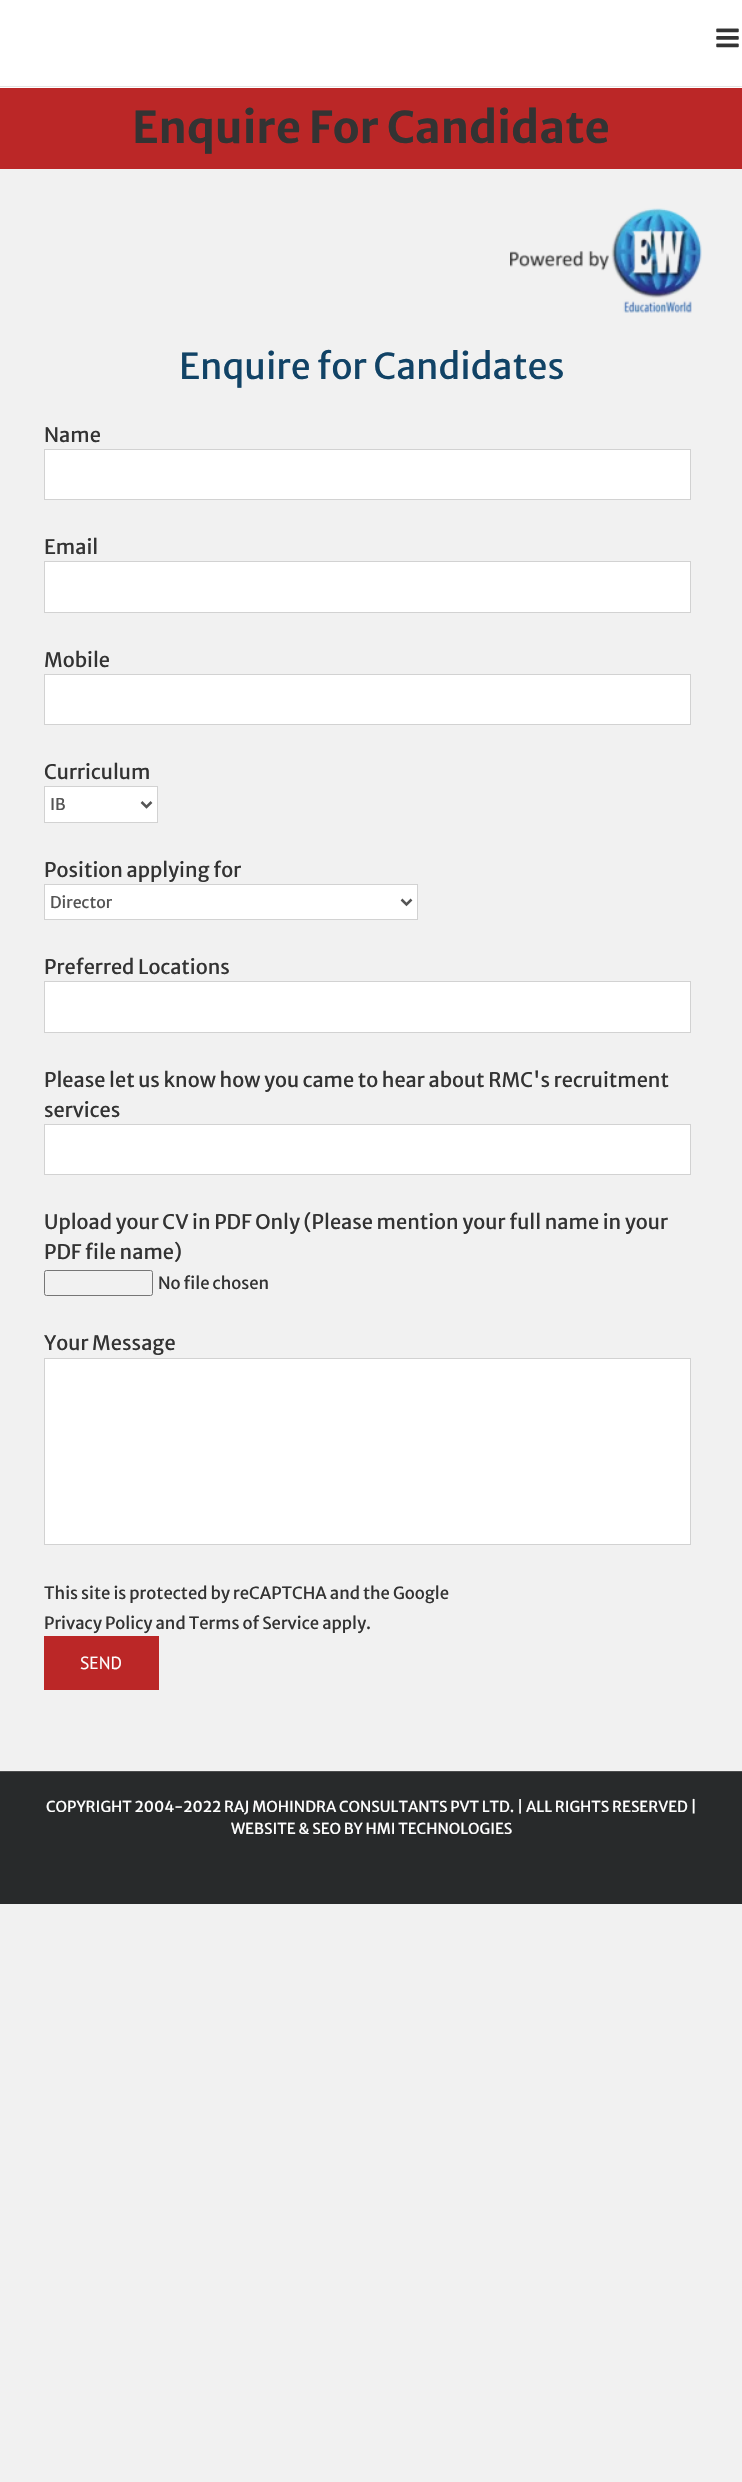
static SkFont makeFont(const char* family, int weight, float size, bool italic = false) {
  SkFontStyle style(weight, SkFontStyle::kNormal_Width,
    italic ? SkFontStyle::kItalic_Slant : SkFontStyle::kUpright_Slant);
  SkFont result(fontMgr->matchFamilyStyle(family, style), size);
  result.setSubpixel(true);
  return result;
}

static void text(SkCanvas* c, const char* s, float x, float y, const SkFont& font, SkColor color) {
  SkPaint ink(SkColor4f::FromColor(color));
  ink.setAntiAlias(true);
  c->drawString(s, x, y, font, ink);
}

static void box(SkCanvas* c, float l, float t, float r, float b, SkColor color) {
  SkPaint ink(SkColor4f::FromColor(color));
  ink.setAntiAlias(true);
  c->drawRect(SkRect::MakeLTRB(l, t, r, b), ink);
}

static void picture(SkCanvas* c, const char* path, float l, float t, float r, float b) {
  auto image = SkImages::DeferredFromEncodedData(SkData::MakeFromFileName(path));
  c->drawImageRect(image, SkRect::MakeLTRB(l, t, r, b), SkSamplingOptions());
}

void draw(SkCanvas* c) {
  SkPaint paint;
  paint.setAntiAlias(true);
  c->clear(0xfff1f1f1);
  box(c, 0, 0, 742, 88, 0xffffffff);
  box(c, 0, 86, 742, 87, 0xffe5e5e5);
  picture(c, "img_01.png", 716, 28, 739, 48);
  box(c, 0, 88, 742, 169, 0xffbb2727);
  SkFont face1 = makeFont("Merriweather Sans", 700, 43.75f);
  text(c, "Enquire For Candidate", 132, 143, face1, 0xff333333);
  picture(c, "img_02.png", 510, 208, 702, 313);
  SkFont face2 = makeFont("Merriweather Sans", 400, 35.6f);
  text(c, "Enquire for Candidates", 179, 379, face2, 0xff114366);
  SkFont face3 = makeFont("Merriweather Sans", 400, 20);
  text(c, "Name", 44, 442, face3, 0xff333333);
  paint.setColor(0xffffffff);
  c->drawRect(SkRect::MakeLTRB(44.5f, 449.5f, 690.5f, 499.5f), paint);
  paint.setStyle(SkPaint::kStroke_Style);
  paint.setStrokeWidth(1);
  paint.setColor(0xffd2d2d2);
  c->drawRect(SkRect::MakeLTRB(44.5f, 449.5f, 690.5f, 499.5f), paint);
  text(c, "Email", 44, 554, face3, 0xff333333);
  paint.setStyle(SkPaint::kFill_Style);
  paint.setColor(0xffffffff);
  c->drawRect(SkRect::MakeLTRB(44.5f, 561.5f, 690.5f, 612.5f), paint);
  paint.setStyle(SkPaint::kStroke_Style);
  paint.setColor(0xffd2d2d2);
  c->drawRect(SkRect::MakeLTRB(44.5f, 561.5f, 690.5f, 612.5f), paint);
  text(c, "Mobile", 44, 667, face3, 0xff333333);
  paint.setStyle(SkPaint::kFill_Style);
  paint.setColor(0xffffffff);
  c->drawRect(SkRect::MakeLTRB(44.5f, 674.5f, 690.5f, 724.5f), paint);
  paint.setStyle(SkPaint::kStroke_Style);
  paint.setColor(0xffd2d2d2);
  c->drawRect(SkRect::MakeLTRB(44.5f, 674.5f, 690.5f, 724.5f), paint);
  text(c, "Curriculum", 44, 779, face3, 0xff333333);
  paint.setStyle(SkPaint::kFill_Style);
  paint.setColor(0xffffffff);
  c->drawRect(SkRect::MakeLTRB(44.5f, 786.5f, 157.5f, 822.5f), paint);
  paint.setStyle(SkPaint::kStroke_Style);
  paint.setColor(0xffd2d2d2);
  c->drawRect(SkRect::MakeLTRB(44.5f, 786.5f, 157.5f, 822.5f), paint);
  paint.setStrokeWidth(2.5f);
  paint.setColor(0xff555555);
  c->drawPath(SkPathBuilder().moveTo(141.5f, 802).lineTo(146.5f, 807).lineTo(151.5f, 802).detach(), paint);
  SkFont face4 = makeFont("Merriweather Sans", 400, 16);
  text(c, "IB", 50, 810, face4, 0xff555555);
  text(c, "Position applying for", 44, 877, face3, 0xff333333);
  paint.setStyle(SkPaint::kFill_Style);
  paint.setColor(0xffffffff);
  c->drawRect(SkRect::MakeLTRB(44.5f, 884.5f, 417.5f, 919.5f), paint);
  paint.setStyle(SkPaint::kStroke_Style);
  paint.setStrokeWidth(1);
  paint.setColor(0xffd2d2d2);
  c->drawRect(SkRect::MakeLTRB(44.5f, 884.5f, 417.5f, 919.5f), paint);
  paint.setStrokeWidth(2.5f);
  paint.setColor(0xff555555);
  c->drawPath(SkPathBuilder().moveTo(401.5f, 899.5f).lineTo(406.5f, 904.5f).lineTo(411.5f, 899.5f).detach(), paint);
  text(c, "Director", 50, 908, face4, 0xff555555);
  text(c, "Preferred Locations", 44, 974, face3, 0xff333333);
  paint.setStyle(SkPaint::kFill_Style);
  paint.setColor(0xffffffff);
  c->drawRect(SkRect::MakeLTRB(44.5f, 981.5f, 690.5f, 1032.5f), paint);
  paint.setStyle(SkPaint::kStroke_Style);
  paint.setStrokeWidth(1);
  paint.setColor(0xffd2d2d2);
  c->drawRect(SkRect::MakeLTRB(44.5f, 981.5f, 690.5f, 1032.5f), paint);
  text(c, "Please let us know how you came to hear about RMC's recruitment", 44, 1087, face3, 0xff333333);
  text(c, "services", 44, 1117, face3, 0xff333333);
  paint.setStyle(SkPaint::kFill_Style);
  paint.setColor(0xffffffff);
  c->drawRect(SkRect::MakeLTRB(44.5f, 1124.5f, 690.5f, 1174.5f), paint);
  paint.setStyle(SkPaint::kStroke_Style);
  paint.setColor(0xffd2d2d2);
  c->drawRect(SkRect::MakeLTRB(44.5f, 1124.5f, 690.5f, 1174.5f), paint);
  text(c, "Upload your CV in PDF Only (Please mention your full name in your", 44, 1229, face3, 0xff333333);
  text(c, "PDF file name)", 44, 1259, face3, 0xff333333);
  paint.setColor(0xff767676);
  c->drawRoundRect(SkRect::MakeLTRB(44.5f, 1270.5f, 152.5f, 1295.5f), 2, 2, paint);
  SkFont face5 = makeFont("Merriweather Sans", 400, 16.7f);
  text(c, "No file chosen", 158, 1289, face5, 0xff333333);
  text(c, "Your Message", 44, 1350, face3, 0xff333333);
  paint.setStyle(SkPaint::kFill_Style);
  paint.setColor(0xffffffff);
  c->drawRect(SkRect::MakeLTRB(44.5f, 1358.5f, 690.5f, 1544.5f), paint);
  paint.setStyle(SkPaint::kStroke_Style);
  paint.setColor(0xffd2d2d2);
  c->drawRect(SkRect::MakeLTRB(44.5f, 1358.5f, 690.5f, 1544.5f), paint);
  text(c, "This site is protected by reCAPTCHA and the Google", 44, 1599, face5, 0xff333333);
  text(c, "Privacy Policy and Terms of Service apply.", 44, 1629, face5, 0xff333333);
  box(c, 44, 1636, 159, 1690, 0xffbb2727);
  SkFont face6 = makeFont("PT Sans", 400, 17.5f);
  text(c, "SEND", 80, 1669, face6, 0xffffffff);
  box(c, 0, 1772, 742, 1904, 0xff282a2b);
  box(c, 0, 1771, 742, 1772, 0xff4b4c4d);
  SkFont face7 = makeFont("Merriweather Sans", 400, 15);
  text(c, "COPYRIGHT 2004-2022 RAJ MOHINDRA CONSULTANTS PVT LTD. | ALL RIGHTS RESERVED |", 46, 1812, face7, 0xffffffff);
  text(c, "WEBSITE & SEO BY HMI TECHNOLOGIES", 231, 1834, face7, 0xffffffff);
}
